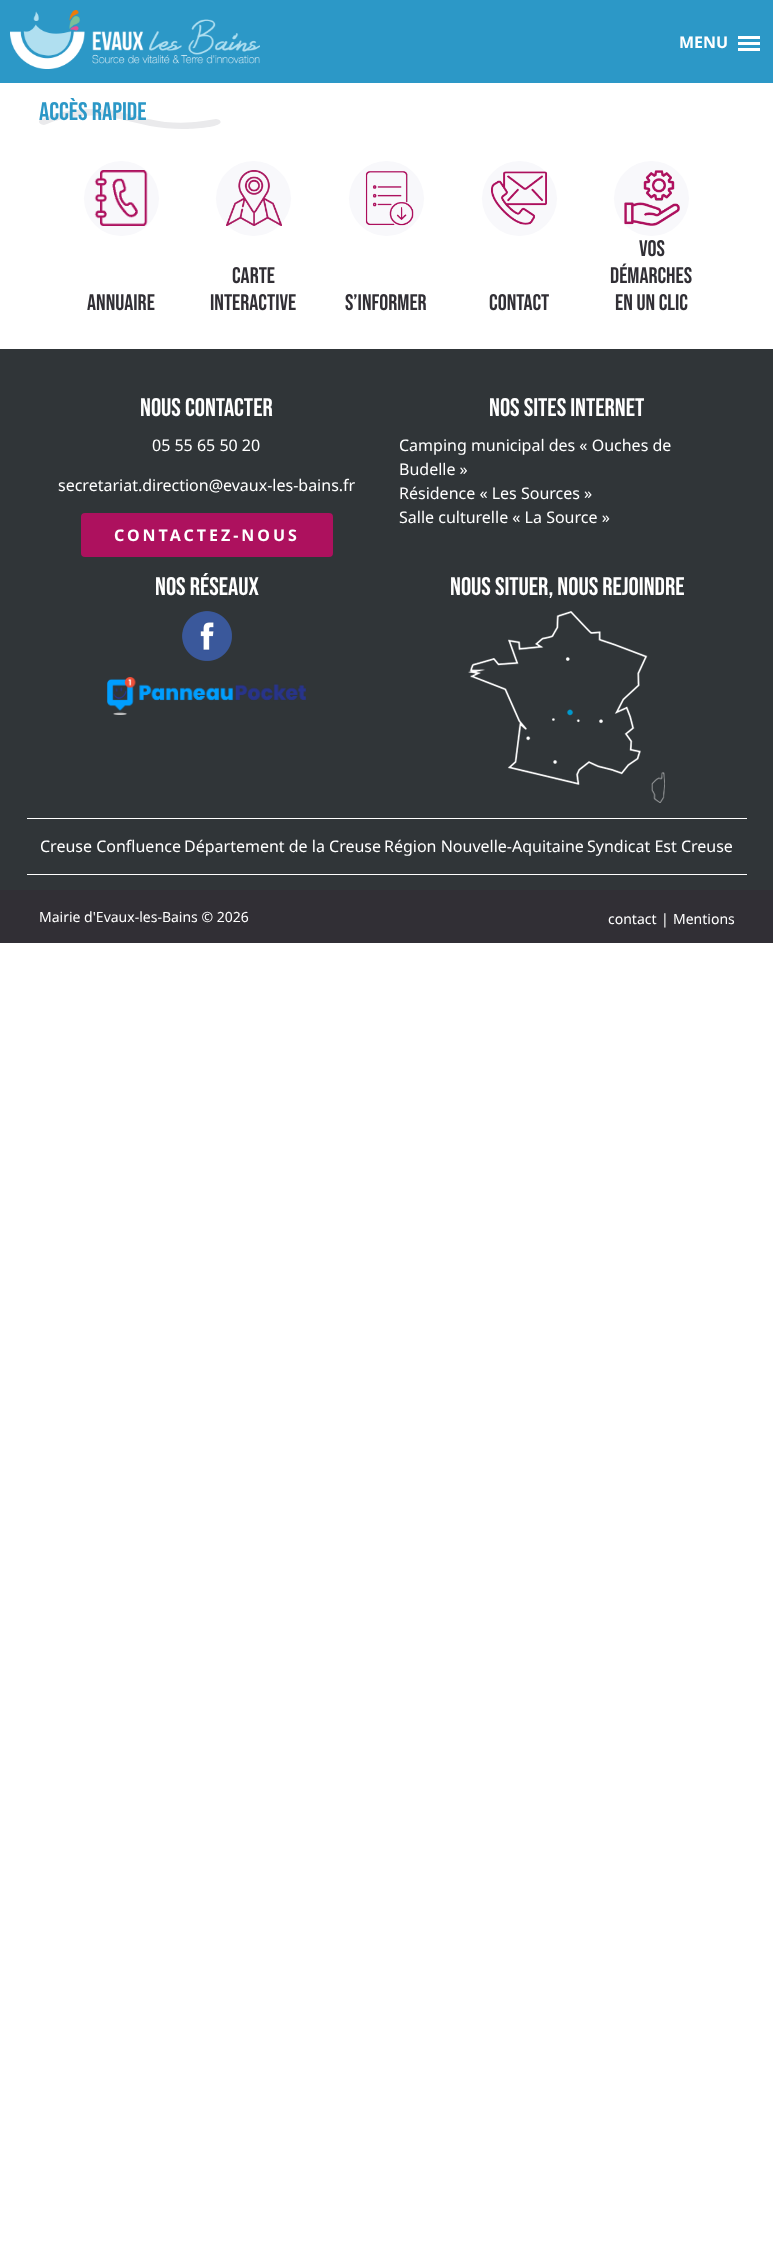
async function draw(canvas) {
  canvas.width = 773
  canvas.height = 2268
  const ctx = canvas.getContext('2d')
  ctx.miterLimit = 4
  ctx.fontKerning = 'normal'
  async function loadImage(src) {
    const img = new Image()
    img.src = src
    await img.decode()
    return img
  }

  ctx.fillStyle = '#fff'
  ctx.fillRect(0, 0, 773, 2268)
  ctx.fillStyle = '#2c98c7'
  ctx.fillRect(0, 0, 773, 83)
  ctx.drawImage(await loadImage('image0.png'), 10, 10, 250, 59)
  ctx.font = 'bold 16px Noto Sans'
  ctx.fillStyle = '#fff'
  ctx.fillText('MENU', 679, 48)
  ctx.fillRect(738, 36, 22, 3)
  ctx.fillRect(738, 42, 22, 3)
  ctx.fillRect(738, 48, 22, 3)
  ctx.fillStyle = '#eaeaec'
  ctx.beginPath()
  ctx.moveTo(183, 129)
  ctx.bezierCurveTo(172, 129, 161, 128, 150, 126)
  ctx.lineTo(115, 118)
  ctx.bezierCurveTo(102, 115, 88, 115, 74, 117)
  ctx.bezierCurveTo(65, 118, 56, 120, 47, 124)
  ctx.lineTo(44, 125)
  ctx.bezierCurveTo(41, 125, 37, 122, 40, 120)
  ctx.lineTo(50, 116)
  ctx.bezierCurveTo(64, 111, 79, 109, 95, 109)
  ctx.bezierCurveTo(119, 109, 141, 119, 165, 122)
  ctx.bezierCurveTo(178, 123, 190, 123, 203, 121)
  ctx.lineTo(216, 119)
  ctx.bezierCurveTo(219, 119, 223, 122, 219, 124)
  ctx.bezierCurveTo(214, 128, 188, 129, 183, 129)
  ctx.closePath()
  ctx.fill()
  ctx.font = '25.5px Bebas Neue'
  ctx.fillStyle = '#2c98c7'
  ctx.fillText('Accès rapide', 39, 120)
  ctx.fillStyle = '#f8f8fb'
  ctx.beginPath()
  ctx.arc(121.5, 198.5, 37.5, 0, 2 * Math.PI)
  ctx.fill()
  ctx.drawImage(await loadImage('image1.png'), 94, 170, 54, 56)
  ctx.font = '22.5px Bebas Neue'
  ctx.fillStyle = '#312f35'
  ctx.fillText('Annuaire', 87, 310)
  ctx.fillStyle = '#f8f8fb'
  ctx.beginPath()
  ctx.arc(253.5, 198.5, 37.5, 0, 2 * Math.PI)
  ctx.fill()
  ctx.drawImage(await loadImage('image2.png'), 226, 170, 56, 56)
  ctx.fillStyle = '#312f35'
  ctx.fillText('Carte', 232, 283)
  ctx.fillText('interactive', 210, 310)
  ctx.fillStyle = '#f8f8fb'
  ctx.beginPath()
  ctx.arc(386.5, 198.5, 37.5, 0, 2 * Math.PI)
  ctx.fill()
  ctx.drawImage(await loadImage('image3.png'), 365, 171, 49, 55)
  ctx.fillStyle = '#312f35'
  ctx.fillText('S’informer', 345, 310)
  ctx.fillStyle = '#f8f8fb'
  ctx.beginPath()
  ctx.arc(519.5, 198.5, 37.5, 0, 2 * Math.PI)
  ctx.fill()
  ctx.drawImage(await loadImage('image4.png'), 491, 171, 56, 54)
  ctx.fillStyle = '#312f35'
  ctx.fillText('Contact', 489, 310)
  ctx.fillStyle = '#f8f8fb'
  ctx.beginPath()
  ctx.arc(651.5, 198.5, 37.5, 0, 2 * Math.PI)
  ctx.fill()
  ctx.drawImage(await loadImage('image5.png'), 624, 170, 56, 56)
  ctx.fillStyle = '#312f35'
  ctx.fillText('Vos', 639, 256)
  ctx.fillText('démarches', 610, 283)
  ctx.fillText('en un clic', 615, 310)
  ctx.fillStyle = '#303538'
  ctx.fillRect(0, 349, 773, 541)
  ctx.font = '25.5px Bebas Neue'
  ctx.fillStyle = '#fff'
  ctx.fillText('Nous contacter', 140, 416)
  ctx.font = '16px Noto Sans'
  ctx.fillText('05 55 65 50 20', 152, 451)
  ctx.fillText('secretariat.direction@evaux-les-bains.fr', 58, 491)
  ctx.fillStyle = '#ad115e'
  ctx.beginPath()
  ctx.roundRect(81, 513, 252, 44, 4)
  ctx.fill()
  ctx.letterSpacing = '3px'
  ctx.font = 'bold 16px Noto Sans'
  ctx.fillStyle = '#fff'
  ctx.fillText('CONTACTEZ-NOUS', 114, 541)
  ctx.letterSpacing = '0px'
  ctx.font = '25.5px Bebas Neue'
  ctx.fillText('Nos sites internet', 489, 416)
  ctx.font = '16px Noto Sans'
  ctx.fillText('Camping municipal des « Ouches de', 399, 451)
  ctx.fillText('Budelle »', 399, 475)
  ctx.fillText('Résidence « Les Sources »', 399, 499)
  ctx.fillText('Salle culturelle « La Source »', 399, 523)
  ctx.font = '25.5px Bebas Neue'
  ctx.fillText('Nos réseaux', 155, 595)
  ctx.drawImage(await loadImage('image6.png'), 182, 611, 50, 50)
  ctx.drawImage(await loadImage('image7.png'), 107, 677, 199, 38)
  ctx.fillText('Nous situer, nous rejoindre', 450, 595)
  ctx.drawImage(await loadImage('image8.png'), 468, 611, 197, 192)
  ctx.fillRect(27, 818, 720, 1)
  ctx.fillRect(27, 874, 720, 1)
  ctx.font = '16px Noto Sans'
  ctx.fillText('Creuse Confluence', 40, 852)
  ctx.fillText('Département de la Creuse', 184, 852)
  ctx.fillText('Région Nouvelle-Aquitaine', 384, 852)
  ctx.fillText('Syndicat Est Creuse', 587, 852)
  ctx.fillStyle = '#312f35'
  ctx.fillRect(0, 890, 773, 53)
  ctx.font = '14px Noto Sans'
  ctx.fillStyle = '#fff'
  ctx.fillText('Mairie d\'Evaux-les-Bains © 2026', 39, 922)
  ctx.fillText('contact', 608, 924)
  ctx.fillText('|', 661, 924)
  ctx.fillText('Mentions', 673, 924)
}

draw(document.querySelector('canvas'))
